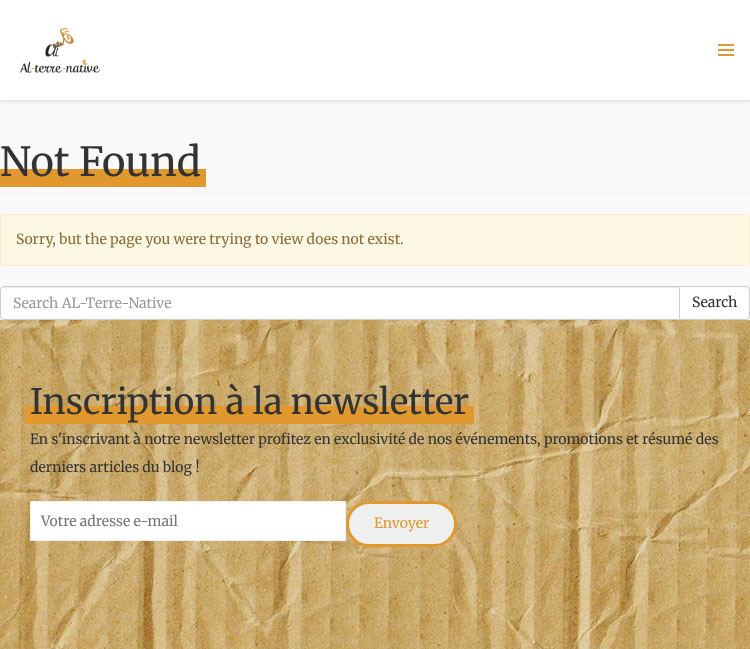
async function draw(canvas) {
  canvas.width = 750
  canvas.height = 649
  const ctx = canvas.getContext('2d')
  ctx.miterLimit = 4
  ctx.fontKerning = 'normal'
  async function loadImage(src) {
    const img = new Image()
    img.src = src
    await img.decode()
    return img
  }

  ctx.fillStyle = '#f9f9f9'
  ctx.fillRect(0, 0, 750, 649)
  ctx.fillStyle = '#00000033'
  ctx.filter = 'blur(2.5px)'
  ctx.beginPath()
  ctx.rect(0, 0, 750, 100)
  ctx.fill()
  ctx.filter = 'none'
  ctx.fillStyle = '#fff'
  ctx.fillRect(0, 0, 750, 100)
  ctx.drawImage(await loadImage('image0.png'), 20, 27, 80, 46)
  ctx.fillStyle = '#e1982e'
  ctx.fillRect(718, 49, 16, 2)
  ctx.fillRect(718, 44, 16, 2)
  ctx.fillRect(718, 54, 16, 2)
  ctx.fillStyle = '#eee'
  ctx.fillRect(0, 193, 750, 1)
  ctx.fillStyle = '#e1982e'
  ctx.fillRect(0, 169, 206, 18)
  ctx.font = '300 40px Merriweather'
  ctx.fillStyle = '#333'
  ctx.fillText('Not Found', 0, 176)
  ctx.fillStyle = '#fcf8e3'
  ctx.beginPath()
  ctx.roundRect(0.5, 214.5, 749, 51, 3.5)
  ctx.fill()
  ctx.strokeStyle = '#faebcc'
  ctx.stroke()
  ctx.font = '300 14px Merriweather'
  ctx.fillStyle = '#8a6d3b'
  ctx.fillText('Sorry, but the page you were trying to view does not exist.', 16, 244)
  ctx.fillStyle = '#00000033'
  ctx.filter = 'blur(5px)'
  ctx.beginPath()
  ctx.rect(0, 325, 750, 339)
  ctx.fill()
  ctx.filter = 'none'
  ctx.fillStyle = '#fff'
  ctx.beginPath()
  ctx.roundRect(0, 286, 680, 34, [4, 0, 0, 4])
  ctx.fill()
  ctx.fillStyle = '#ececec'
  ctx.beginPath()
  ctx.moveTo(4, 288)
  ctx.lineTo(679, 288)
  ctx.lineTo(679, 287)
  ctx.lineTo(4, 287)
  ctx.bezierCurveTo(2, 287, 1, 288, 1, 290)
  ctx.lineTo(1, 291)
  ctx.bezierCurveTo(1, 289, 2, 288, 4, 288)
  ctx.closePath()
  ctx.fill()
  ctx.beginPath()
  ctx.roundRect(0.5, 286.5, 679, 33, [3.5, 0, 0, 3.5])
  ctx.strokeStyle = '#ccc'
  ctx.stroke()
  ctx.fillStyle = '#999'
  ctx.fillText('Search AL-Terre-Native', 13, 308)
  ctx.fillStyle = '#fff'
  ctx.beginPath()
  ctx.roundRect(679.5, 286.5, 70, 33, [0, 3.5, 3.5, 0])
  ctx.fill()
  ctx.stroke()
  ctx.fillStyle = '#333'
  ctx.fillText('Search', 692, 307)
  ctx.drawImage(await loadImage('image1.png'), 0, 320, 750, 329)
  ctx.fillStyle = '#e1982e'
  ctx.fillRect(25, 406, 449, 18)
  ctx.font = '300 35px Merriweather'
  ctx.fillStyle = '#333'
  ctx.fillText('Inscription à la newsletter', 30, 414)
  ctx.font = '300 14px Merriweather'
  ctx.fillText('En s\'inscrivant à notre newsletter profitez en exclusivité de nos événements, promotions et résumé des', 30, 444)
  ctx.fillText('derniers articles du blog !', 30, 472)
  ctx.fillStyle = '#fff'
  ctx.beginPath()
  ctx.rect(30.5, 501.5, 315, 39)
  ctx.fill()
  ctx.strokeStyle = '#f2f2f2'
  ctx.stroke()
  ctx.fillStyle = '#757575'
  ctx.fillText('Votre adresse e-mail', 41, 526)
  ctx.fillStyle = '#efefef'
  ctx.beginPath()
  ctx.roundRect(347.5, 502.5, 108, 43, 21.5)
  ctx.fill()
  ctx.strokeStyle = '#e1982e'
  ctx.lineWidth = 3
  ctx.stroke()
  ctx.fillStyle = '#e1982e'
  ctx.fillText('Envoyer', 374, 528)
}

draw(document.querySelector('canvas'))
